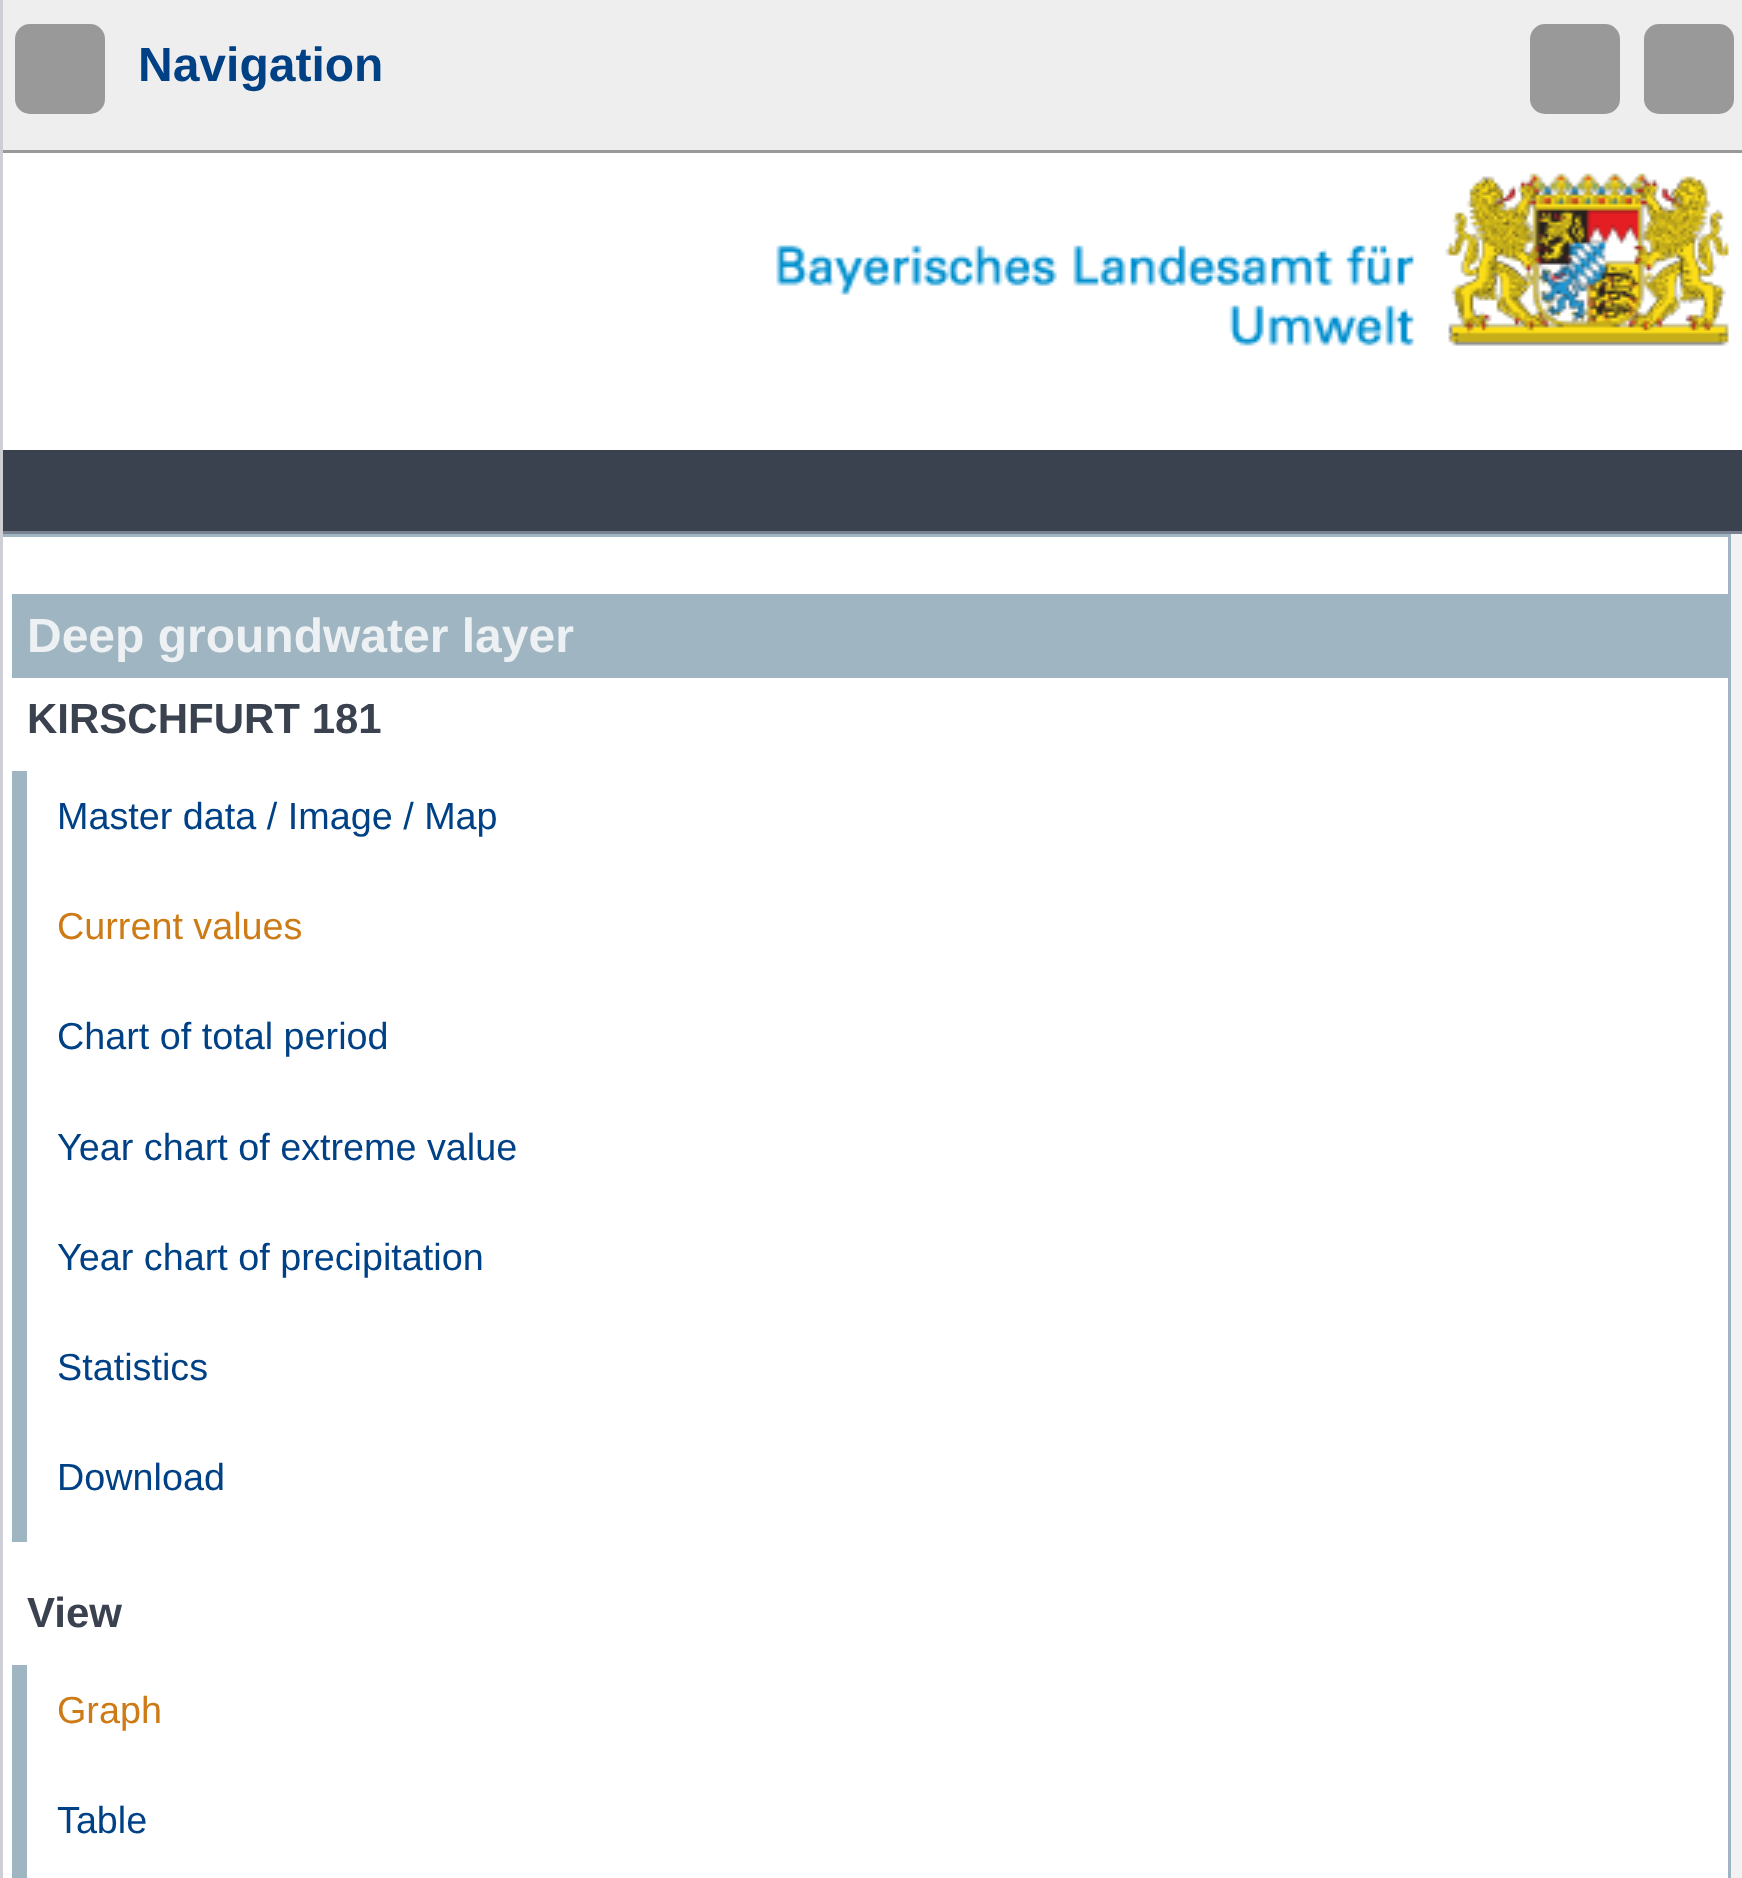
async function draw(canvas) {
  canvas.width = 1742
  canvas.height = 1878
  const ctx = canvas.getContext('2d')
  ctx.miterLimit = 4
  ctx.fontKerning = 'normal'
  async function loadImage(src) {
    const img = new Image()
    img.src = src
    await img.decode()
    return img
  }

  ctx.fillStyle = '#fff'
  ctx.fillRect(0, 0, 1742, 1878)
  ctx.fillStyle = '#cecfd4'
  ctx.fillRect(0, 0, 3, 1878)
  ctx.fillStyle = '#eee'
  ctx.fillRect(3, 0, 1739, 150)
  ctx.fillStyle = '#999'
  ctx.fillRect(3, 150, 1739, 3)
  ctx.beginPath()
  ctx.roundRect(15, 24, 90, 90, 15)
  ctx.fill()
  ctx.font = 'bold 48px Liberation Sans'
  ctx.fillStyle = '#004185'
  ctx.fillText('Navigation', 138, 81)
  ctx.fillStyle = '#999'
  ctx.beginPath()
  ctx.roundRect(1530, 24, 90, 90, 15)
  ctx.fill()
  ctx.beginPath()
  ctx.roundRect(1644, 24, 90, 90, 15)
  ctx.fill()
  ctx.drawImage(await loadImage('image0.png'), 776, 173, 953, 173)
  ctx.fillStyle = '#3b424f'
  ctx.fillRect(3, 450, 1739, 81)
  ctx.fillStyle = '#7a8291'
  ctx.fillRect(3, 531, 1739, 3)
  ctx.fillStyle = '#f2f2f2'
  ctx.fillRect(1731, 534, 11, 1344)
  ctx.fillStyle = '#9fb5c1'
  ctx.fillRect(3, 534, 1728, 3)
  ctx.fillRect(1728, 534, 3, 1344)
  ctx.fillRect(12, 594, 1716, 84)
  ctx.fillStyle = '#edf1f3'
  ctx.fillText('Deep groundwater layer', 27, 652)
  ctx.font = 'bold 42px Liberation Sans'
  ctx.fillStyle = '#3b424f'
  ctx.fillText('KIRSCHFURT 181', 27, 733)
  ctx.fillStyle = '#9fb5c1'
  ctx.fillRect(12, 771, 15, 771)
  ctx.font = '37.75px Liberation Sans'
  ctx.fillStyle = '#004185'
  ctx.fillText('Master data / Image / Map', 57, 829)
  ctx.fillStyle = '#cc7b17'
  ctx.fillText('Current values', 57, 939)
  ctx.fillStyle = '#004185'
  ctx.fillText('Chart of total period', 57, 1049)
  ctx.fillText('Year chart of extreme value', 57, 1160)
  ctx.fillText('Year chart of precipitation', 57, 1270)
  ctx.fillText('Statistics', 57, 1380)
  ctx.fillText('Download', 57, 1490)
  ctx.font = 'bold 42px Liberation Sans'
  ctx.fillStyle = '#3b424f'
  ctx.fillText('View', 27, 1627)
  ctx.fillStyle = '#9fb5c1'
  ctx.fillRect(12, 1665, 15, 213)
  ctx.font = '37.75px Liberation Sans'
  ctx.fillStyle = '#cc7b17'
  ctx.fillText('Graph', 57, 1723)
  ctx.fillStyle = '#004185'
  ctx.fillText('Table', 57, 1833)
}

draw(document.querySelector('canvas'))
